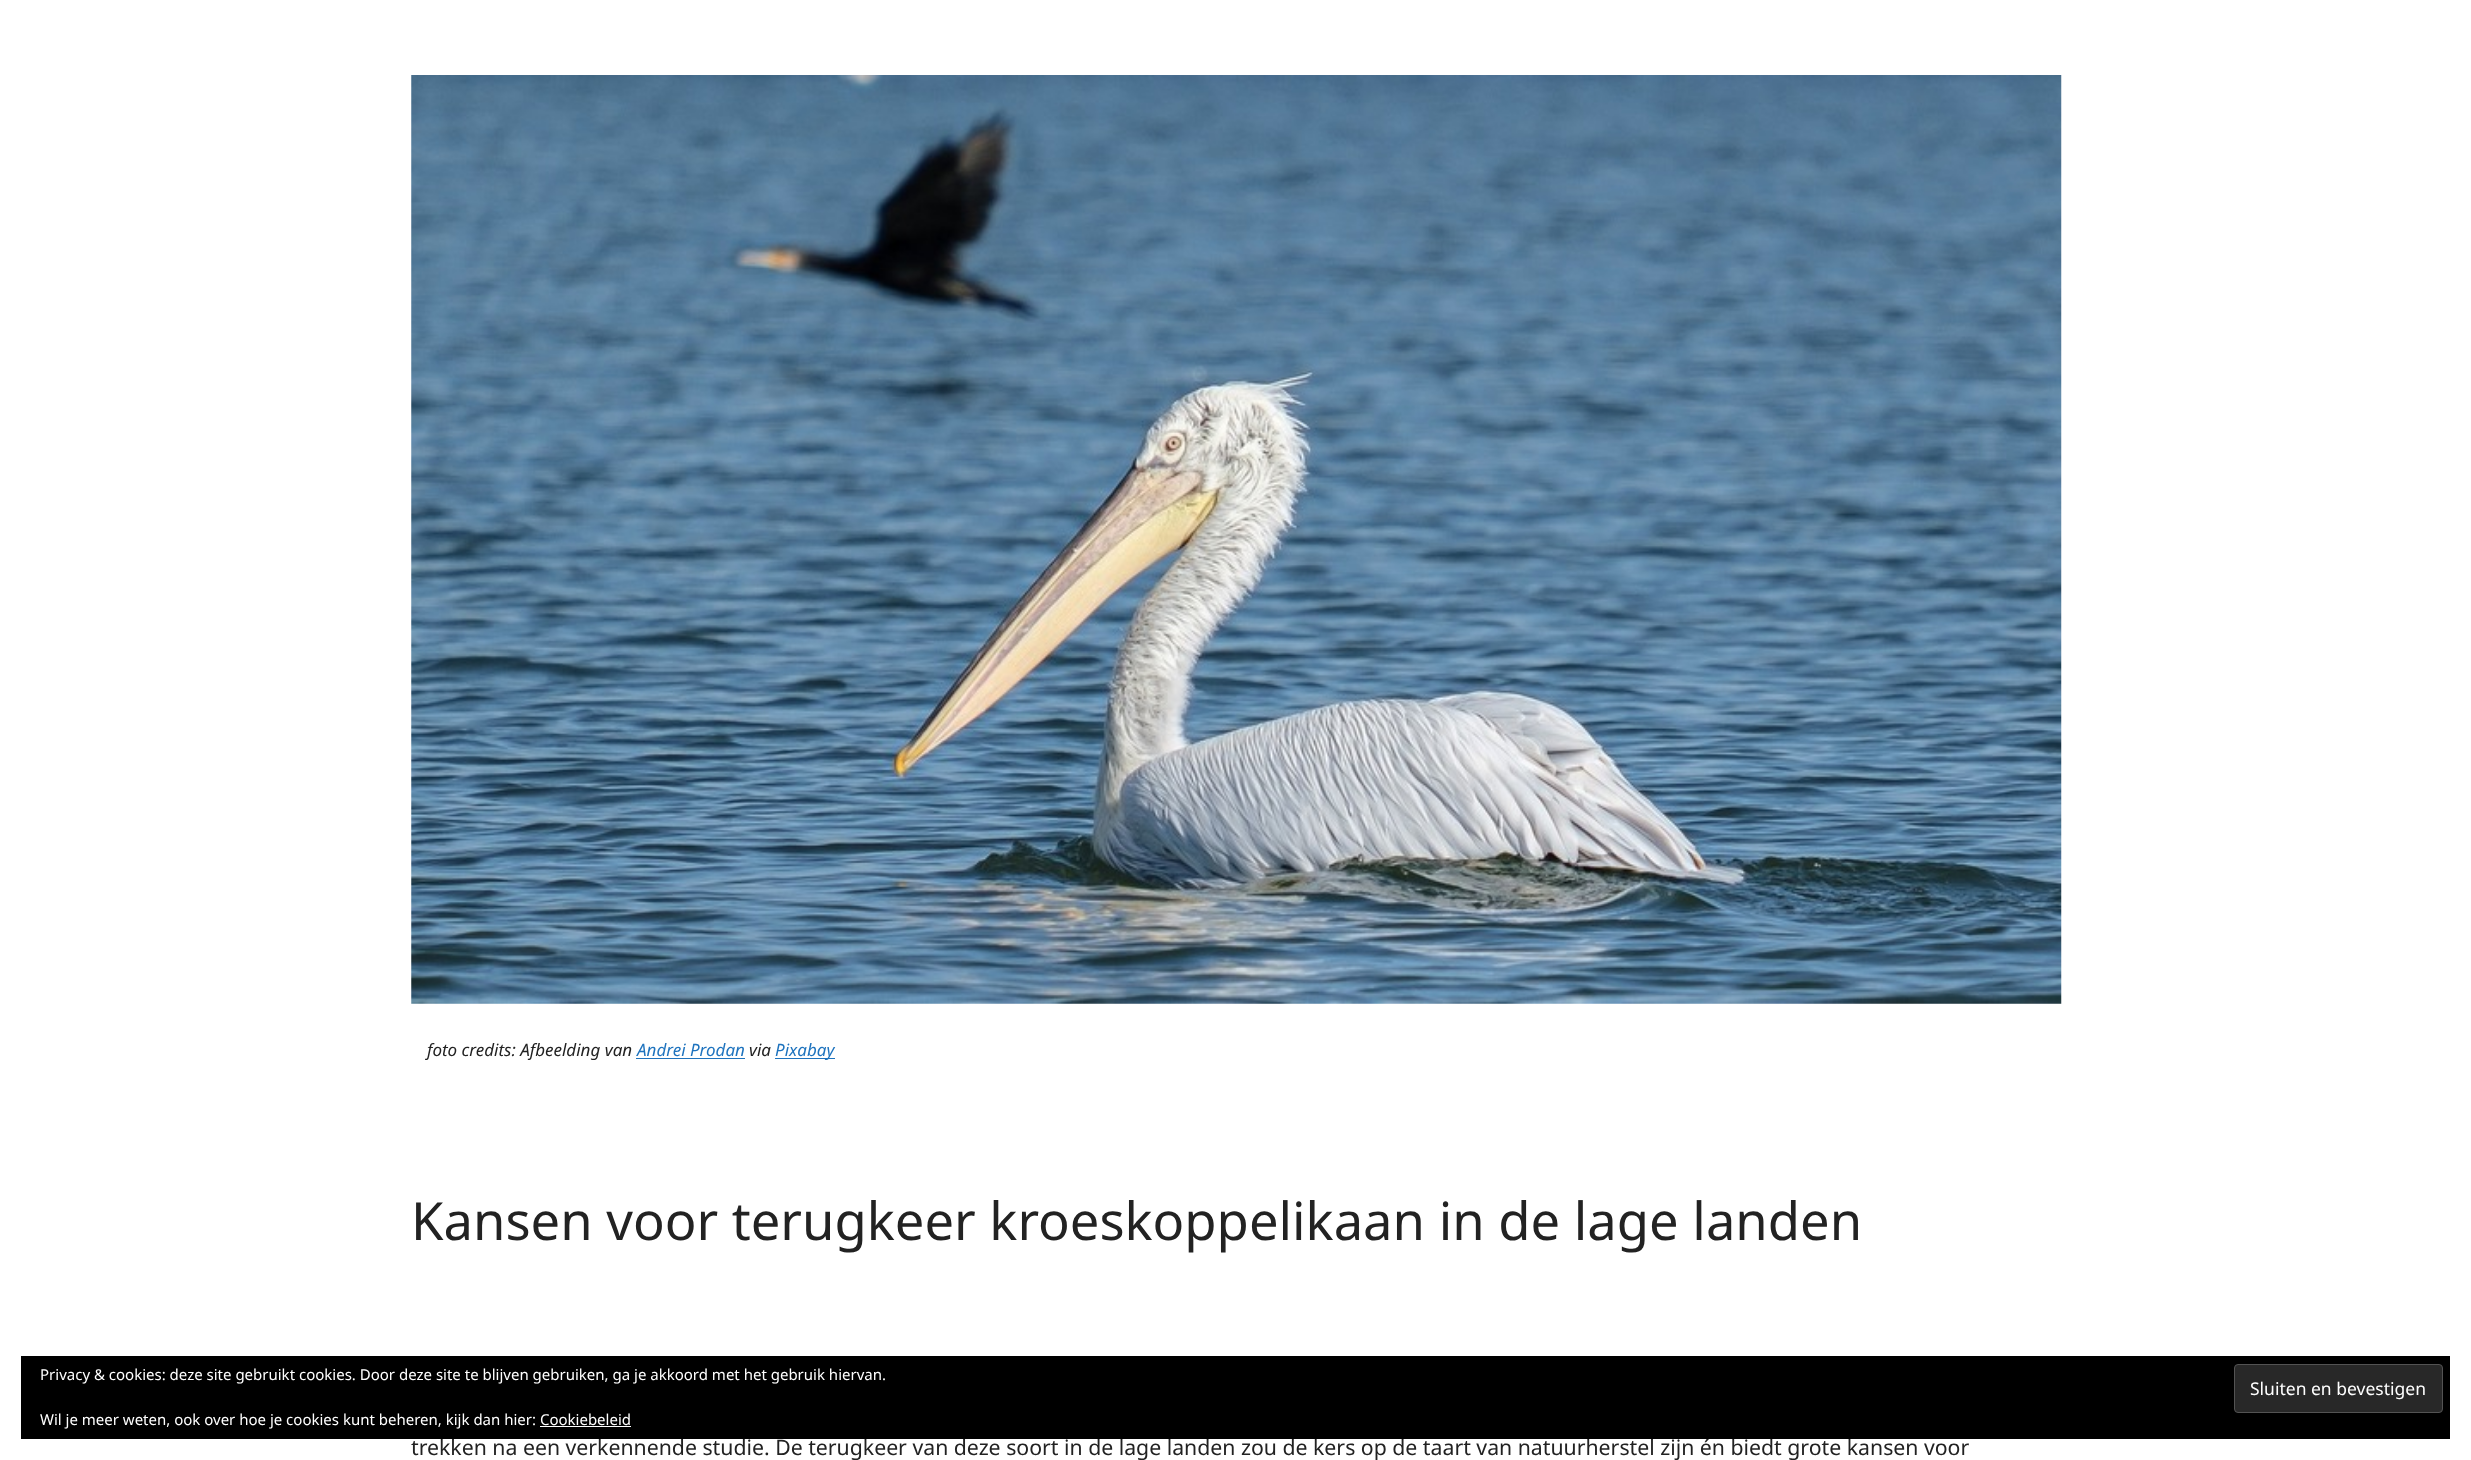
async function draw(canvas) {
  canvas.width = 2471
  canvas.height = 1460
  const ctx = canvas.getContext('2d')
  ctx.miterLimit = 4
  ctx.fontKerning = 'normal'
  async function loadImage(src) {
    const img = new Image()
    img.src = src
    await img.decode()
    return img
  }

  ctx.fillStyle = '#fff'
  ctx.fillRect(0, 0, 2471, 1460)
  ctx.drawImage(await loadImage('image0.png'), 411, 75, 1651, 929)
  ctx.font = 'italic 17px Noto Sans'
  ctx.fillStyle = '#222'
  ctx.fillText('foto credits: Afbeelding van', 427, 1056)
  ctx.fillStyle = '#1e73be'
  ctx.fillText('Andrei Prodan', 637, 1056)
  ctx.fillRect(636, 1058, 109, 1)
  ctx.fillStyle = '#222'
  ctx.fillText('via', 749, 1056)
  ctx.fillStyle = '#1e73be'
  ctx.fillRect(775, 1058, 60, 1)
  ctx.fillText('Pixabay', 775, 1056)
  ctx.font = '52.5px Noto Sans'
  ctx.fillStyle = '#222'
  ctx.fillText('Kansen voor terugkeer kroeskoppelikaan in de lage landen', 411, 1240)
  ctx.font = '21.25px Noto Sans'
  ctx.fillText('trekken na een verkennende studie. De terugkeer van deze soort in de lage landen zou de kers op de taart van natuurherstel zijn én biedt grote kansen voor', 411, 1455)
  ctx.fillStyle = '#000'
  ctx.fillRect(21, 1356, 2429, 83)
  ctx.font = '15px Noto Sans'
  ctx.fillStyle = '#fff'
  ctx.fillText('Privacy & cookies: deze site gebruikt cookies. Door deze site te blijven gebruiken, ga je akkoord met het gebruik hiervan.', 40, 1380)
  ctx.fillStyle = '#282828'
  ctx.beginPath()
  ctx.roundRect(2234.5, 1364.5, 208, 48, 3.5)
  ctx.fill()
  ctx.strokeStyle = '#535353'
  ctx.stroke()
  ctx.font = '17.5px Noto Sans'
  ctx.fillStyle = '#fff'
  ctx.fillText('Sluiten en bevestigen', 2250, 1395)
  ctx.font = '15px Noto Sans'
  ctx.fillText('Wil je meer weten, ook over hoe je cookies kunt beheren, kijk dan hier: Cookiebeleid', 40, 1425)
  ctx.fillRect(540, 1426, 91, 1)
}

draw(document.querySelector('canvas'))
